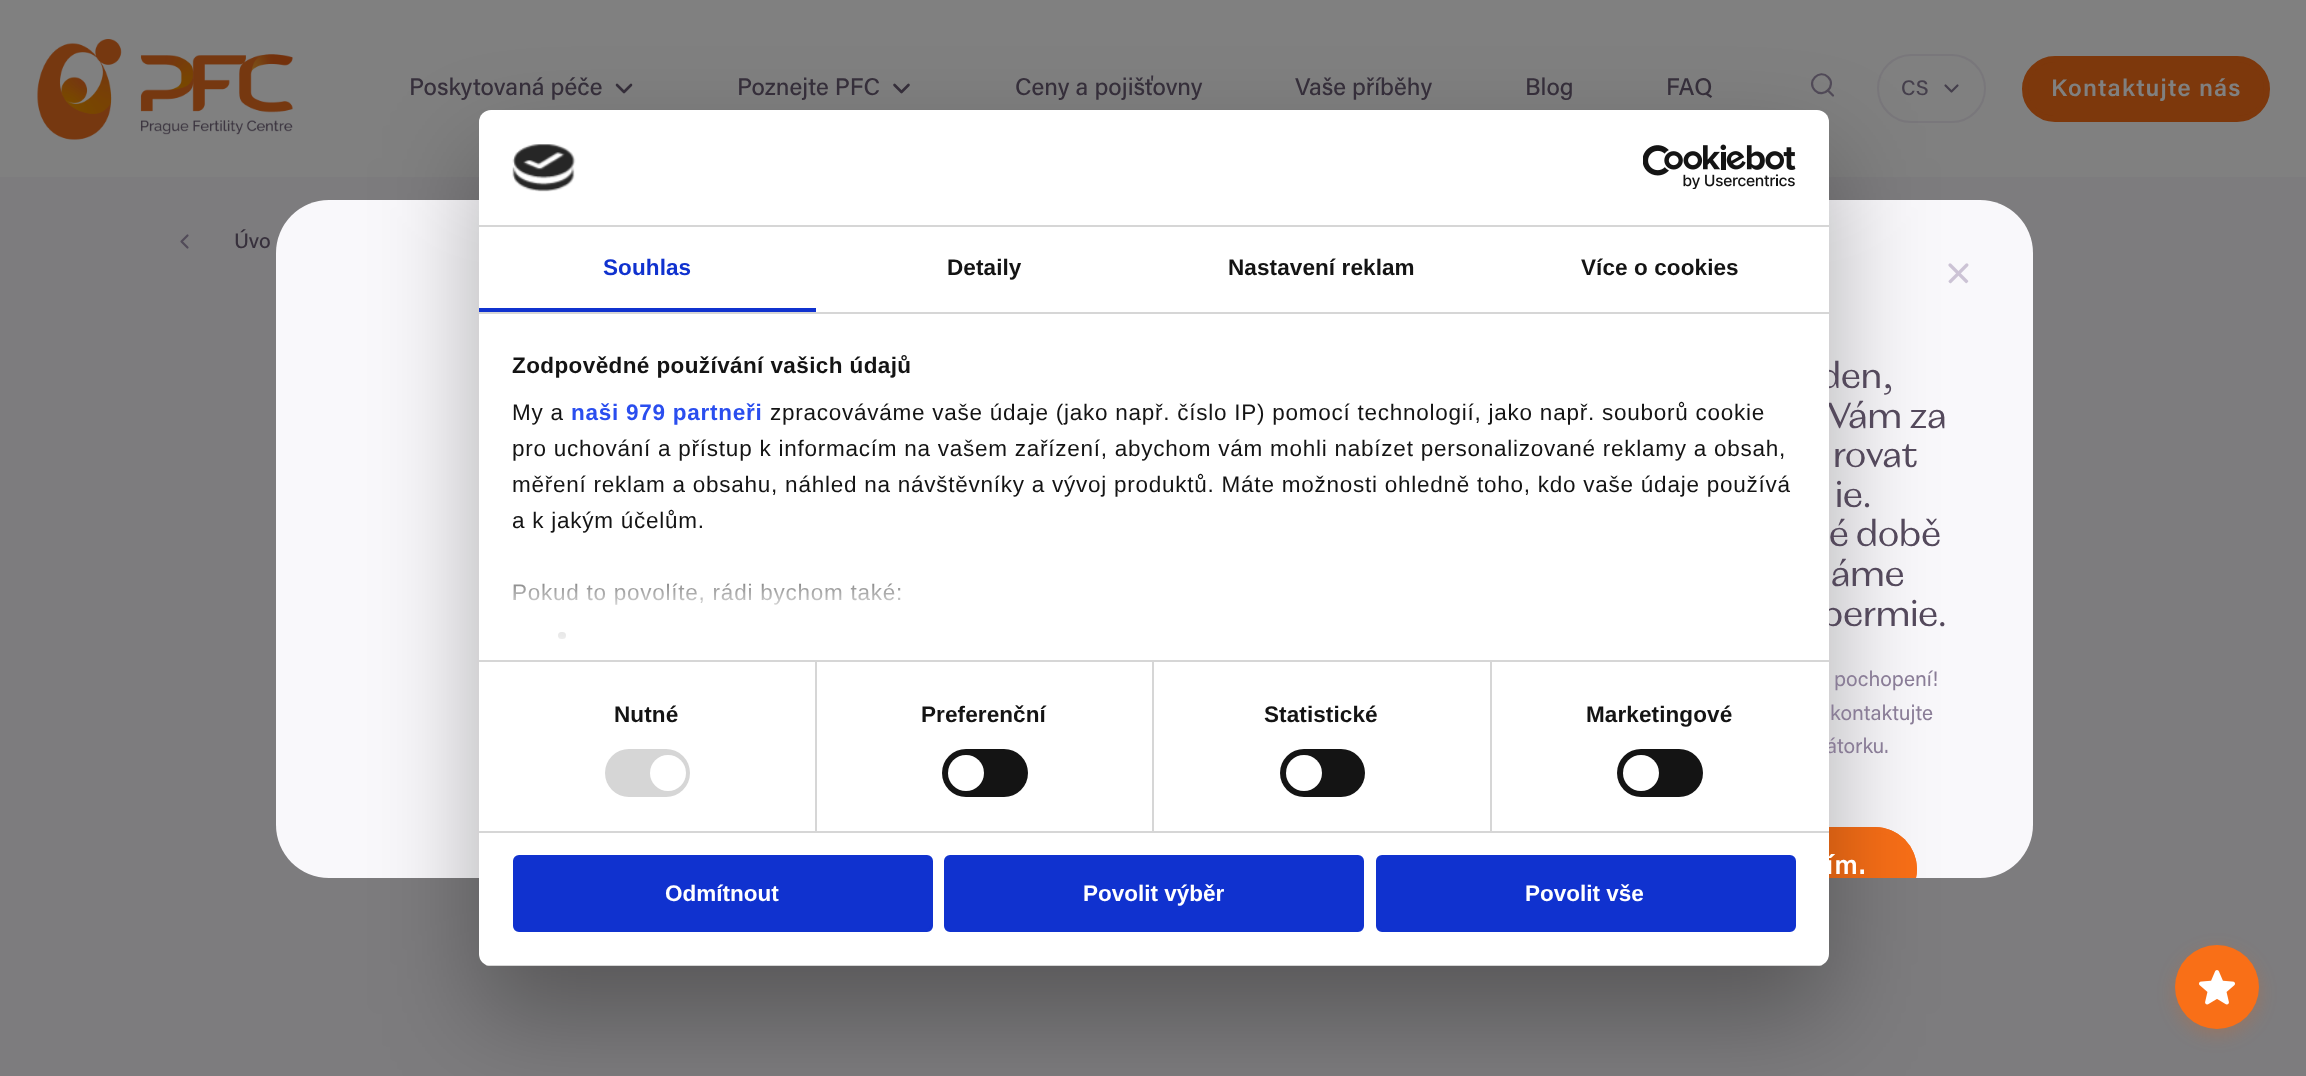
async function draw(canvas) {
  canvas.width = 2306
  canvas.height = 1076
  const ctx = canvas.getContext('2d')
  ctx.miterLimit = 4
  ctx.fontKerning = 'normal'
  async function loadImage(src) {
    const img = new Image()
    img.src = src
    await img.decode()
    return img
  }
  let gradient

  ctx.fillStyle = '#7d7c7e'
  ctx.fillRect(0, 0, 2306, 1076)
  ctx.fillStyle = '#808080'
  ctx.fillRect(0, 0, 2306, 177)
  ctx.drawImage(await loadImage('image0.png'), 37, 39, 256, 101)
  ctx.font = '500 24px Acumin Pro'
  ctx.fillStyle = '#37303c'
  ctx.fillText('Poskytovaná péče', 409, 95)
  ctx.beginPath()
  ctx.moveTo(617, 85)
  ctx.lineTo(624, 92)
  ctx.lineTo(631, 85)
  ctx.strokeStyle = '#37303c'
  ctx.lineWidth = 2.6
  ctx.lineCap = 'round'
  ctx.lineJoin = 'round'
  ctx.stroke()
  ctx.fillText('Poznejte PFC', 737, 95)
  ctx.beginPath()
  ctx.moveTo(894.5, 85)
  ctx.lineTo(901.5, 92)
  ctx.lineTo(908.5, 85)
  ctx.stroke()
  ctx.fillText('Ceny a pojišťovny', 1015, 95)
  ctx.fillText('Vaše příběhy', 1295, 95)
  ctx.fillText('Blog', 1525, 95)
  ctx.fillText('FAQ', 1666, 95)
  ctx.beginPath()
  ctx.moveTo(1828, 77)
  ctx.bezierCurveTo(1837, 85.5, 1823.5, 99, 1815, 90.5)
  ctx.bezierCurveTo(1806, 81.5, 1819.5, 68.5, 1828, 77)
  ctx.moveTo(1833, 95.5)
  ctx.lineTo(1828, 90.5)
  ctx.strokeStyle = '#524b59'
  ctx.lineWidth = 2.2
  ctx.stroke()
  ctx.beginPath()
  ctx.roundRect(1878, 55, 107, 67, 33.5)
  ctx.strokeStyle = '#79777b'
  ctx.lineWidth = 2
  ctx.lineJoin = 'miter'
  ctx.stroke()
  ctx.font = '500 21px Acumin Pro'
  ctx.fillStyle = '#453f4c'
  ctx.fillText('CS', 1901, 95)
  ctx.beginPath()
  ctx.moveTo(1945.5, 85.5)
  ctx.lineTo(1951.5, 91.5)
  ctx.lineTo(1957.5, 85.5)
  ctx.strokeStyle = '#453f4c'
  ctx.lineWidth = 2.2
  ctx.lineJoin = 'round'
  ctx.stroke()
  ctx.fillStyle = '#7d380c'
  ctx.beginPath()
  ctx.roundRect(2025, 59, 242, 60, 30)
  ctx.fill()
  ctx.strokeStyle = '#7d380c'
  ctx.lineWidth = 6
  ctx.lineJoin = 'miter'
  ctx.stroke()
  ctx.letterSpacing = '1.25px'
  ctx.font = '600 24px Acumin Pro'
  ctx.fillStyle = '#808080'
  ctx.fillText('Kontaktujte nás', 2051, 96)
  ctx.beginPath()
  ctx.moveTo(187.5, 235.5)
  ctx.lineTo(181.5, 241.5)
  ctx.lineTo(187.5, 247.5)
  ctx.strokeStyle = '#524b59'
  ctx.lineWidth = 2.2
  ctx.lineJoin = 'round'
  ctx.stroke()
  ctx.letterSpacing = '0px'
  ctx.font = '500 21px Acumin Pro'
  ctx.fillStyle = '#37303c'
  ctx.fillText('Úvo', 234, 248)
  ctx.fillStyle = '#f9f8fb'
  ctx.beginPath()
  ctx.roundRect(276, 200, 1757, 678, 53)
  ctx.fill()
  ctx.drawImage(await loadImage('image3.png'), 1948, 263, 21, 21)
  ctx.save()
  ctx.beginPath()
  ctx.roundRect(276, 200, 1757, 678, 53)
  ctx.clip()
  ctx.fillStyle = '#f96f17'
  ctx.beginPath()
  ctx.roundRect(1685, 827, 232, 84, 42)
  ctx.fill()
  ctx.restore()
  ctx.fillStyle = '#f96f17'
  ctx.beginPath()
  ctx.moveTo(1727, 827)
  ctx.bezierCurveTo(1701, 827, 1680, 852, 1686, 878)
  ctx.lineTo(1692, 878)
  ctx.bezierCurveTo(1691, 875, 1691, 872, 1691, 869)
  ctx.bezierCurveTo(1691, 849, 1707, 833, 1727, 833)
  ctx.lineTo(1875, 833)
  ctx.bezierCurveTo(1895, 833, 1911, 849, 1911, 869)
  ctx.bezierCurveTo(1911, 872, 1911, 875, 1910, 878)
  ctx.lineTo(1916, 878)
  ctx.bezierCurveTo(1922, 852, 1901, 827, 1875, 827)
  ctx.closePath()
  ctx.fill()
  ctx.fillStyle = '#0000004d'
  ctx.filter = 'blur(51px)'
  ctx.beginPath()
  ctx.roundRect(479, 158, 1350, 856, 12)
  ctx.fill()
  ctx.filter = 'none'
  ctx.font = '36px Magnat'
  ctx.fillStyle = '#54495c'
  ctx.fillText('den,', 1819, 388)
  ctx.fillText('Vám za', 1827, 428)
  ctx.fillText('permie.', 1821, 626)
  ctx.font = '21px Acumin Pro'
  ctx.fillStyle = '#8a7d97'
  ctx.fillText('átorku.', 1826, 753)
  ctx.fillStyle = '#fff'
  ctx.beginPath()
  ctx.roundRect(479, 110, 1350, 856, 12)
  ctx.fill()
  ctx.fillStyle = '#d6d6d6'
  ctx.fillRect(479, 225, 1350, 2)
  ctx.drawImage(await loadImage('image1.png'), 512, 144, 64, 48)
  ctx.drawImage(await loadImage('image2.png'), 1643, 144, 153, 45)
  ctx.fillRect(479, 312, 1350, 2)
  ctx.fillStyle = '#1032cf'
  ctx.fillRect(479, 308, 337, 4)
  ctx.letterSpacing = '0.1px'
  ctx.font = 'bold 22.5px Liberation Sans'
  ctx.fillText('Souhlas', 603, 275)
  ctx.fillStyle = '#141414'
  ctx.fillText('Detaily', 947, 275)
  ctx.fillText('Nastavení reklam', 1228, 275)
  ctx.fillText('Více o cookies', 1581, 275)
  ctx.fillStyle = '#d6d6d6'
  ctx.fillRect(479, 660, 1350, 2)
  ctx.letterSpacing = '0.4px'
  ctx.fillStyle = '#141414'
  ctx.fillText('Zodpovědné používání vašich údajů', 512, 373)
  ctx.letterSpacing = '0.75px'
  ctx.font = '22.5px Liberation Sans'
  ctx.fillText('My a', 512, 420)
  ctx.font = 'bold 22.5px Liberation Sans'
  ctx.fillStyle = '#2a4eef'
  ctx.fillText('naši 979 partneři', 571, 420)
  ctx.font = '22.5px Liberation Sans'
  ctx.fillStyle = '#141414'
  ctx.fillText('zpracováváme vaše údaje (jako např. číslo IP) pomocí technologií, jako např. souborů cookie', 770, 420)
  ctx.fillText('pro uchování a přístup k informacím na vašem zařízení, abychom vám mohli nabízet personalizované reklamy a obsah,', 512, 456)
  ctx.fillText('měření reklam a obsahu, náhled na návštěvníky a vývoj produktů. Máte možnosti ohledně toho, kdo vaše údaje používá', 512, 492)
  ctx.fillText('a k jakým účelům.', 512, 528)
  ctx.fillText('Pokud to povolíte, rádi bychom také:', 512, 600)
  ctx.beginPath()
  ctx.roundRect(558, 632, 8, 7, 3.5)
  ctx.fill()
  gradient = ctx.createLinearGradient(1139, 660, 1139, 548)
  gradient.addColorStop(0, '#fff')
  gradient.addColorStop(0.5, '#ffffffcc')
  gradient.addColorStop(1, '#ffffff00')
  ctx.fillStyle = gradient
  ctx.fillRect(514, 583, 387, 56)
  ctx.fillStyle = '#d6d6d6'
  ctx.fillRect(479, 831, 1350, 2)
  ctx.fillRect(815, 662, 2, 169)
  ctx.letterSpacing = '0.1px'
  ctx.font = 'bold 22.5px Liberation Sans'
  ctx.fillStyle = '#141414'
  ctx.fillText('Nutné', 614, 722)
  ctx.fillStyle = '#d6d6d6'
  ctx.beginPath()
  ctx.roundRect(605, 749, 85, 48, 24)
  ctx.fill()
  ctx.fillStyle = '#fff'
  ctx.beginPath()
  ctx.arc(668, 773, 18, 0, 2 * Math.PI)
  ctx.fill()
  ctx.fillStyle = '#d6d6d6'
  ctx.fillRect(1152, 662, 2, 169)
  ctx.fillStyle = '#141414'
  ctx.fillText('Preferenční', 921, 722)
  ctx.beginPath()
  ctx.roundRect(942, 749, 86, 48, 24)
  ctx.fill()
  ctx.fillStyle = '#fff'
  ctx.beginPath()
  ctx.arc(966, 773, 18, 0, 2 * Math.PI)
  ctx.fill()
  ctx.fillStyle = '#d6d6d6'
  ctx.fillRect(1490, 662, 2, 169)
  ctx.fillStyle = '#141414'
  ctx.fillText('Statistické', 1264, 722)
  ctx.beginPath()
  ctx.roundRect(1280, 749, 85, 48, 24)
  ctx.fill()
  ctx.fillStyle = '#fff'
  ctx.beginPath()
  ctx.arc(1304, 773, 18, 0, 2 * Math.PI)
  ctx.fill()
  ctx.fillStyle = '#141414'
  ctx.fillText('Marketingové', 1586, 722)
  ctx.beginPath()
  ctx.roundRect(1617, 749, 86, 48, 24)
  ctx.fill()
  ctx.fillStyle = '#fff'
  ctx.beginPath()
  ctx.arc(1641, 773, 18, 0, 2 * Math.PI)
  ctx.fill()
  ctx.save()
  ctx.beginPath()
  ctx.roundRect(479, 110, 1350, 856, 12)
  ctx.clip()
  ctx.fillStyle = '#d6d6d6'
  ctx.fillRect(479, 965, 1350, 1)
  ctx.restore()
  ctx.fillStyle = '#1032cf'
  ctx.beginPath()
  ctx.roundRect(514.5, 856.5, 417, 74, 4.5)
  ctx.fill()
  ctx.strokeStyle = '#1032cf'
  ctx.lineWidth = 3
  ctx.lineJoin = 'miter'
  ctx.stroke()
  ctx.letterSpacing = '0px'
  ctx.fillStyle = '#fff'
  ctx.fillText('Odmítnout', 665, 901)
  ctx.fillStyle = '#1032cf'
  ctx.beginPath()
  ctx.roundRect(945.5, 856.5, 417, 74, 4.5)
  ctx.fill()
  ctx.stroke()
  ctx.fillStyle = '#fff'
  ctx.fillText('Povolit výběr', 1083, 901)
  ctx.fillStyle = '#1032cf'
  ctx.beginPath()
  ctx.roundRect(1377.5, 856.5, 417, 74, 4.5)
  ctx.fill()
  ctx.stroke()
  ctx.fillStyle = '#fff'
  ctx.fillText('Povolit vše', 1525, 901)
  ctx.font = '36px Magnat'
  ctx.fillStyle = '#54495c'
  ctx.fillText('rovat', 1833, 467)
  ctx.fillText('ie.', 1835, 507)
  ctx.fillText('é době', 1829, 546)
  ctx.fillText('áme', 1831, 586)
  ctx.font = '21px Acumin Pro'
  ctx.fillStyle = '#8a7d97'
  ctx.fillText('pochopení!', 1834, 686)
  ctx.fillText('kontaktujte', 1830, 720)
  ctx.letterSpacing = '1.5px'
  ctx.font = '600 27px Acumin Pro'
  ctx.fillStyle = '#fff'
  ctx.fillText('ím.', 1826, 874)
  ctx.fillStyle = '#ff5f0033'
  ctx.filter = 'blur(9px)'
  ctx.beginPath()
  ctx.roundRect(2175, 951, 84, 84, 42)
  ctx.fill()
  ctx.filter = 'none'
  ctx.fillStyle = '#f96f17'
  ctx.beginPath()
  ctx.arc(2217, 987, 42, 0, 2 * Math.PI)
  ctx.fill()
  ctx.drawImage(await loadImage('image4.png'), 2199, 970, 36, 35)
}

draw(document.querySelector('canvas'))
